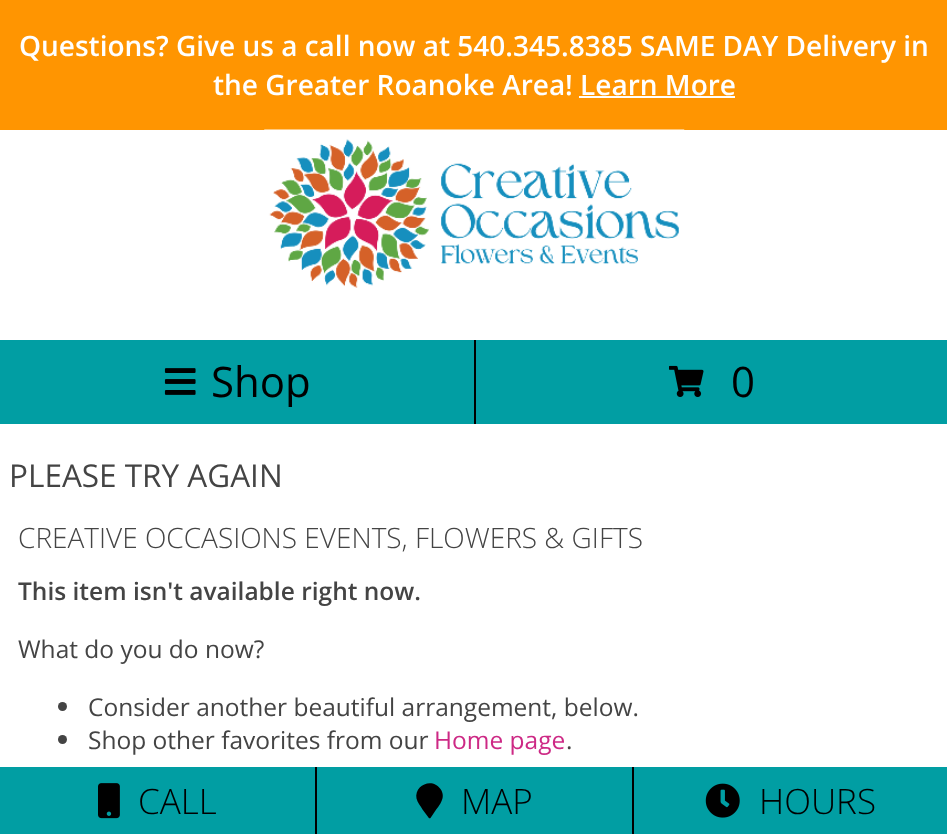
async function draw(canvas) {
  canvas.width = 947
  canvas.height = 834
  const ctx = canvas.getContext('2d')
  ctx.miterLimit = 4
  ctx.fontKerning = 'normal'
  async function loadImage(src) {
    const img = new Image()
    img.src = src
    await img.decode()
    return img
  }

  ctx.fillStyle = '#fff'
  ctx.fillRect(0, 0, 947, 834)
  ctx.fillStyle = '#ff9501'
  ctx.fillRect(0, 0, 947, 130)
  ctx.font = '600 28px Open Sans'
  ctx.fillStyle = '#fff'
  ctx.fillText('Questions? Give us a call now at 540.345.8385 SAME DAY Delivery in', 19, 56)
  ctx.fillText('the Greater Roanoke Area! Learn More', 213, 95)
  ctx.fillRect(579, 96, 156, 2)
  ctx.drawImage(await loadImage('image0.png'), 264, 129, 421, 159)
  ctx.fillStyle = '#000'
  ctx.fillRect(474, 340, 2, 84)
  ctx.fillStyle = '#019ea3'
  ctx.fillRect(0, 340, 474, 84)
  ctx.drawImage(await loadImage('image1.png'), 164, 368, 32, 27)
  ctx.font = '42px Open Sans'
  ctx.fillStyle = '#000'
  ctx.fillText('Shop', 211, 397)
  ctx.fillStyle = '#019ea3'
  ctx.fillRect(476, 340, 471, 84)
  ctx.drawImage(await loadImage('image2.png'), 669, 365, 35, 32)
  ctx.fillStyle = '#000'
  ctx.fillText('0', 731, 397)
  ctx.font = '31.5px Open Sans'
  ctx.fillStyle = '#444'
  ctx.fillText('PLEASE TRY AGAIN', 9, 487)
  ctx.font = '300 28px Open Sans'
  ctx.fillText('CREATIVE OCCASIONS EVENTS, FLOWERS & GIFTS', 18, 548)
  ctx.font = '600 24.5px Open Sans'
  ctx.fillText('This item isn\'t available right now.', 18, 600)
  ctx.font = '24.5px Open Sans'
  ctx.fillText('What do you do now?', 18, 658)
  ctx.beginPath()
  ctx.arc(62.5, 706.5, 4.5, 0, 2 * Math.PI)
  ctx.fill()
  ctx.fillText('Consider another beautiful arrangement, below.', 88, 716)
  ctx.beginPath()
  ctx.arc(62.5, 739.5, 4.5, 0, 2 * Math.PI)
  ctx.fill()
  ctx.fillText('Shop other favorites from our', 88, 749)
  ctx.fillStyle = '#cd2985'
  ctx.fillText('Home page', 434, 749)
  ctx.fillStyle = '#444'
  ctx.fillText('.', 566, 749)
  ctx.fillStyle = '#019ea3'
  ctx.fillRect(0, 767, 315, 67)
  ctx.drawImage(await loadImage('image3.png'), 98, 783, 22, 36)
  ctx.font = '300 35px Open Sans'
  ctx.fillStyle = '#000'
  ctx.fillText('CALL', 138, 814)
  ctx.fillStyle = '#019ea3'
  ctx.fillRect(317, 767, 315, 67)
  ctx.fillStyle = '#000'
  ctx.fillRect(315, 767, 2, 67)
  ctx.beginPath()
  ctx.moveTo(428.5, 817.5)
  ctx.lineTo(422.5, 809.5)
  ctx.bezierCurveTo(420.5, 806, 417.5, 802.5, 416.5, 798.5)
  ctx.bezierCurveTo(414, 785, 432.5, 777, 440.5, 789)
  ctx.bezierCurveTo(446.5, 797.5, 439.5, 805, 434.5, 812)
  ctx.lineTo(430.5, 818)
  ctx.bezierCurveTo(429.5, 818.5, 428.5, 818, 428.5, 817.5)
  ctx.closePath()
  ctx.fill()
  ctx.fillText('MAP', 461, 814)
  ctx.fillStyle = '#019ea3'
  ctx.fillRect(634, 767, 313, 67)
  ctx.fillStyle = '#000'
  ctx.fillRect(632, 767, 2, 67)
  ctx.drawImage(await loadImage('image4.png'), 705, 783, 35, 35)
  ctx.fillText('HOURS', 759, 814)
}

draw(document.querySelector('canvas'))
